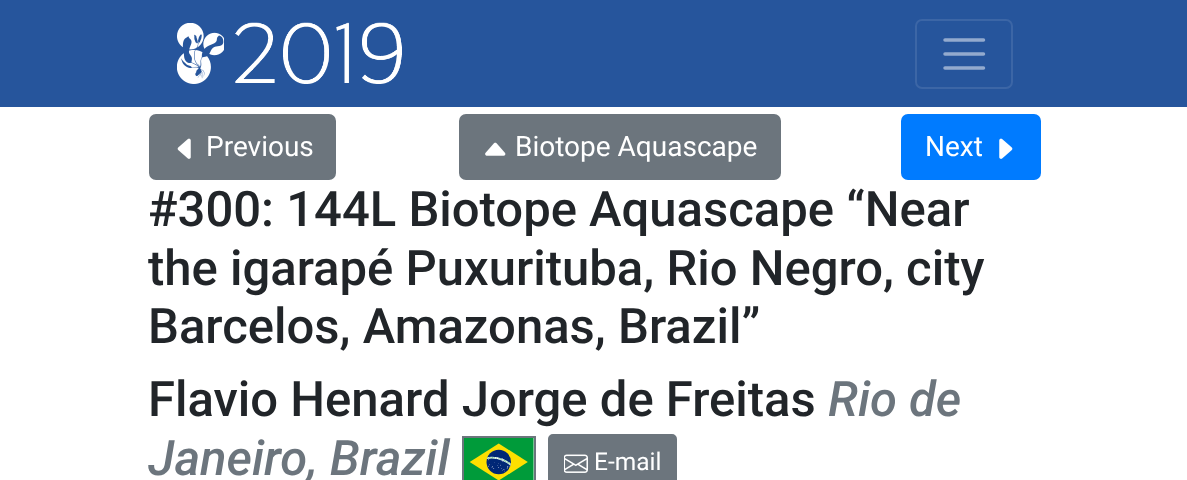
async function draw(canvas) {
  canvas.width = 1187
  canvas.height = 480
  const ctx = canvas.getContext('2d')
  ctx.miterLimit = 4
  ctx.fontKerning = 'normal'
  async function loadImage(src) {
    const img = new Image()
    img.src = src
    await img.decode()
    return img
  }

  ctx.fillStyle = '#fff'
  ctx.fillRect(0, 0, 1187, 480)
  ctx.fillStyle = '#26559c'
  ctx.fillRect(0, 0, 1187, 107)
  ctx.drawImage(await loadImage('image0.png'), 177, 23, 47, 61)
  ctx.drawImage(await loadImage('image1.png'), 235, 22, 167, 62)
  ctx.beginPath()
  ctx.roundRect(916, 20, 96, 68, 6)
  ctx.strokeStyle = '#3c66a6'
  ctx.lineWidth = 2
  ctx.stroke()
  ctx.beginPath()
  ctx.moveTo(945, 40)
  ctx.lineTo(983.5, 40)
  ctx.moveTo(945, 54)
  ctx.lineTo(983.5, 54)
  ctx.moveTo(945, 68)
  ctx.lineTo(983.5, 68)
  ctx.strokeStyle = '#93aace'
  ctx.lineWidth = 3.5
  ctx.lineCap = 'round'
  ctx.stroke()
  ctx.fillStyle = '#6c757d'
  ctx.beginPath()
  ctx.roundRect(150, 115, 185, 64, 6)
  ctx.fill()
  ctx.strokeStyle = '#6c757d'
  ctx.lineWidth = 2
  ctx.stroke()
  ctx.drawImage(await loadImage('image2.png'), 177, 138, 14, 21)
  ctx.font = '28px Roboto'
  ctx.fillStyle = '#fff'
  ctx.fillText('Previous', 206, 156)
  ctx.fillStyle = '#6c757d'
  ctx.beginPath()
  ctx.roundRect(460, 115, 320, 64, 6)
  ctx.fill()
  ctx.stroke()
  ctx.drawImage(await loadImage('image3.png'), 485, 142, 21, 14)
  ctx.fillStyle = '#fff'
  ctx.fillText('Biotope Aquascape', 515, 156)
  ctx.fillStyle = '#007bff'
  ctx.beginPath()
  ctx.roundRect(902, 115, 138, 64, 6)
  ctx.fill()
  ctx.strokeStyle = '#007bff'
  ctx.stroke()
  ctx.fillStyle = '#fff'
  ctx.fillText('Next', 925, 156)
  ctx.drawImage(await loadImage('image4.png'), 999, 138, 14, 21)
  ctx.font = '500 49px Roboto'
  ctx.fillStyle = '#212529'
  ctx.fillText('#300: 144L Biotope Aquascape “Near', 148, 226)
  ctx.fillText('the igarapé Puxurituba, Rio Negro, city', 148, 285)
  ctx.fillText('Barcelos, Amazonas, Brazil”', 148, 343)
  ctx.fillText('Flavio Henard Jorge de Freitas', 148, 416)
  ctx.font = 'italic 500 49px Roboto'
  ctx.fillStyle = '#6c757d'
  ctx.fillText('Rio de', 828, 416)
  ctx.fillText('Janeiro, Brazil', 148, 475)
  ctx.strokeStyle = '#6c757d'
  ctx.strokeRect(463, 437, 72, 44)
  ctx.drawImage(await loadImage('image5.png'), 464, 438, 70, 42)
  ctx.beginPath()
  ctx.roundRect(549, 435, 127, 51, 4)
  ctx.fill()
  ctx.stroke()
  ctx.drawImage(await loadImage('image6.png'), 564, 454, 24, 19)
  ctx.font = '24.5px Roboto'
  ctx.fillStyle = '#fff'
  ctx.fillText('E-mail', 594, 470)
}

draw(document.querySelector('canvas'))
